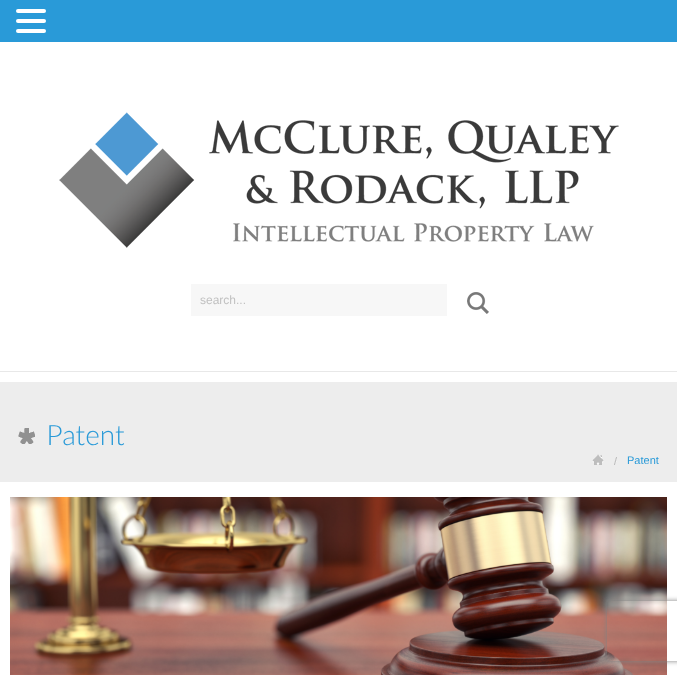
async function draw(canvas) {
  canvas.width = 677
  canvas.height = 675
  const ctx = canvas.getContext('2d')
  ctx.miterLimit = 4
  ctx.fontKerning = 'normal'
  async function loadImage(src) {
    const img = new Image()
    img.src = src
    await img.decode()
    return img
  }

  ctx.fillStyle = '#fff'
  ctx.fillRect(0, 0, 677, 675)
  ctx.fillStyle = '#299ad8'
  ctx.fillRect(0, 0, 677, 42)
  ctx.fillStyle = '#fff'
  ctx.beginPath()
  ctx.roundRect(16, 9, 30, 4, 2)
  ctx.fill()
  ctx.beginPath()
  ctx.roundRect(16, 19, 30, 4, 2)
  ctx.fill()
  ctx.beginPath()
  ctx.roundRect(16, 29, 30, 4, 2)
  ctx.fill()
  ctx.fillStyle = '#e8e8e8'
  ctx.fillRect(0, 371, 677, 1)
  ctx.drawImage(await loadImage('image0.png'), 59, 112, 560, 136)
  ctx.fillStyle = '#f7f7f7'
  ctx.fillRect(191, 284, 256, 32)
  ctx.font = '12px Liberation Sans'
  ctx.fillStyle = '#c1c1c1'
  ctx.fillText('search...', 200, 304)
  ctx.drawImage(await loadImage('image1.png'), 467, 292, 22, 22)
  ctx.fillStyle = '#ededed'
  ctx.fillRect(0, 382, 677, 100)
  ctx.drawImage(await loadImage('image2.png'), 18, 428, 17, 16)
  ctx.font = '300 28px Lato'
  ctx.fillStyle = '#299ad8'
  ctx.fillText('Patent', 46, 445)
  ctx.drawImage(await loadImage('image3.png'), 614, 457, 3, 8)
  ctx.drawImage(await loadImage('image4.png'), 592, 454, 12, 11)
  ctx.font = '11px Liberation Sans'
  ctx.fillText('Patent', 627, 464)
  ctx.drawImage(await loadImage('image5.png'), 10, 497, 657, 178)
  ctx.save()
  ctx.beginPath()
  ctx.moveTo(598, 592)
  ctx.lineTo(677, 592)
  ctx.lineTo(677, 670)
  ctx.lineTo(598, 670)
  ctx.closePath()
  ctx.moveTo(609, 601)
  ctx.lineTo(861, 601)
  ctx.bezierCurveTo(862, 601, 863, 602, 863, 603)
  ctx.lineTo(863, 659)
  ctx.bezierCurveTo(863, 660, 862, 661, 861, 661)
  ctx.lineTo(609, 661)
  ctx.bezierCurveTo(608, 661, 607, 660, 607, 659)
  ctx.lineTo(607, 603)
  ctx.bezierCurveTo(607, 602, 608, 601, 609, 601)
  ctx.closePath()
  ctx.clip('evenodd')
  ctx.fillStyle = '#808080'
  ctx.filter = 'blur(2.5px)'
  ctx.beginPath()
  ctx.roundRect(607, 601, 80, 60, 2)
  ctx.fill()
  ctx.filter = 'none'
  ctx.restore()
}

draw(document.querySelector('canvas'))
